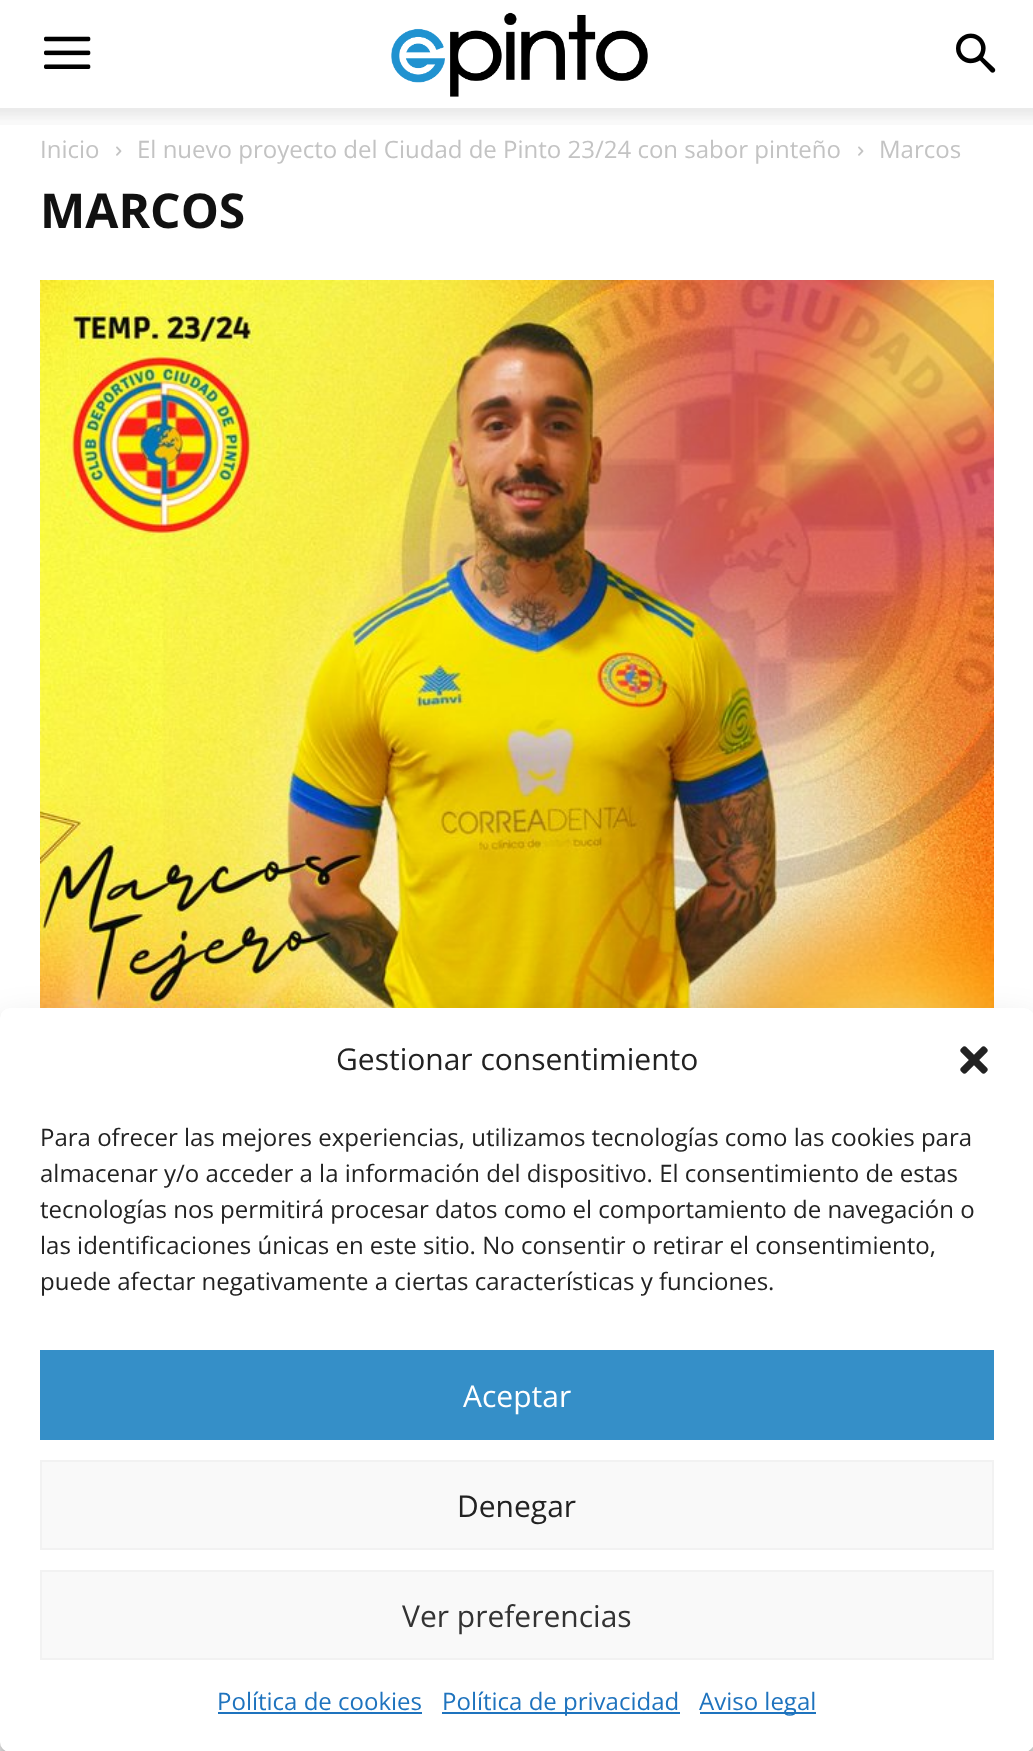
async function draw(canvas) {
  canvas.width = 1033
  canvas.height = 1751
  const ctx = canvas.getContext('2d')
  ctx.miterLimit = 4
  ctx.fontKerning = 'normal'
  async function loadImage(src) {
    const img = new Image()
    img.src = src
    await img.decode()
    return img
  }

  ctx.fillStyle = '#fff'
  ctx.fillRect(0, 0, 1033, 1751)
  ctx.drawImage(await loadImage('image0.png'), 44, 36, 47, 33)
  ctx.drawImage(await loadImage('image1.png'), 391, 12, 257, 85)
  ctx.drawImage(await loadImage('image2.png'), 956, 33, 40, 40)
  ctx.drawImage(await loadImage('image3.png'), 0, 108, 1033, 17)
  ctx.font = '24px Open Sans'
  ctx.fillStyle = '#c3c3c3'
  ctx.fillText('Inicio', 40, 158)
  ctx.drawImage(await loadImage('image4.png'), 116, 146, 6, 10)
  ctx.fillText('El nuevo proyecto del Ciudad de Pinto 23/24 con sabor pinteño', 137, 158)
  ctx.drawImage(await loadImage('image4.png'), 858, 146, 6, 10)
  ctx.fillText('Marcos', 879, 158)
  ctx.font = 'bold 48px Open Sans'
  ctx.fillStyle = '#111'
  ctx.fillText('MARCOS', 40, 228)
  ctx.drawImage(await loadImage('image5.png'), 40, 280, 954, 728)
  ctx.fillStyle = '#0000003b'
  ctx.filter = 'blur(6px)'
  ctx.beginPath()
  ctx.roundRect(0, 1020, 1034, 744, 10)
  ctx.fill()
  ctx.filter = 'none'
  ctx.fillStyle = '#00000030'
  ctx.filter = 'blur(20px)'
  ctx.beginPath()
  ctx.roundRect(0, 1028, 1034, 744, 10)
  ctx.fill()
  ctx.filter = 'none'
  ctx.fillStyle = '#fff'
  ctx.beginPath()
  ctx.roundRect(0, 1008, 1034, 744, 10)
  ctx.fill()
  ctx.font = '30px Open Sans'
  ctx.fillStyle = '#222'
  ctx.fillText('Gestionar consentimiento', 336, 1070)
  ctx.drawImage(await loadImage('image6.png'), 960, 1046, 28, 28)
  ctx.font = '24px Open Sans'
  ctx.fillText('Para ofrecer las mejores experiencias, utilizamos tecnologías como las cookies para', 40, 1146)
  ctx.fillText('almacenar y/o acceder a la información del dispositivo. El consentimiento de estas', 40, 1182)
  ctx.fillText('tecnologías nos permitirá procesar datos como el comportamiento de navegación o', 40, 1218)
  ctx.fillText('las identificaciones únicas en este sitio. No consentir o retirar el consentimiento,', 40, 1254)
  ctx.fillText('puede afectar negativamente a ciertas características y funciones.', 40, 1290)
  ctx.fillStyle = '#358fc8'
  ctx.fillRect(40, 1350, 954, 90)
  ctx.font = '30px Open Sans'
  ctx.fillStyle = '#fff'
  ctx.fillText('Aceptar', 463, 1407)
  ctx.fillStyle = '#f9f9f9'
  ctx.beginPath()
  ctx.rect(41, 1461, 952, 88)
  ctx.fill()
  ctx.strokeStyle = '#f2f2f2'
  ctx.lineWidth = 2
  ctx.stroke()
  ctx.fillStyle = '#222'
  ctx.fillText('Denegar', 457, 1517)
  ctx.fillStyle = '#f9f9f9'
  ctx.beginPath()
  ctx.rect(41, 1571, 952, 88)
  ctx.fill()
  ctx.stroke()
  ctx.fillStyle = '#333'
  ctx.fillText('Ver preferencias', 402, 1627)
  ctx.font = '24px Open Sans'
  ctx.fillStyle = '#1e73be'
  ctx.fillText('Política de cookies', 217, 1710)
  ctx.fillRect(218, 1712, 204, 2)
  ctx.fillRect(442, 1712, 238, 2)
  ctx.fillText('Política de privacidad', 442, 1710)
  ctx.fillRect(700, 1712, 116, 2)
  ctx.fillText('Aviso legal', 699, 1710)
}

draw(document.querySelector('canvas'))
